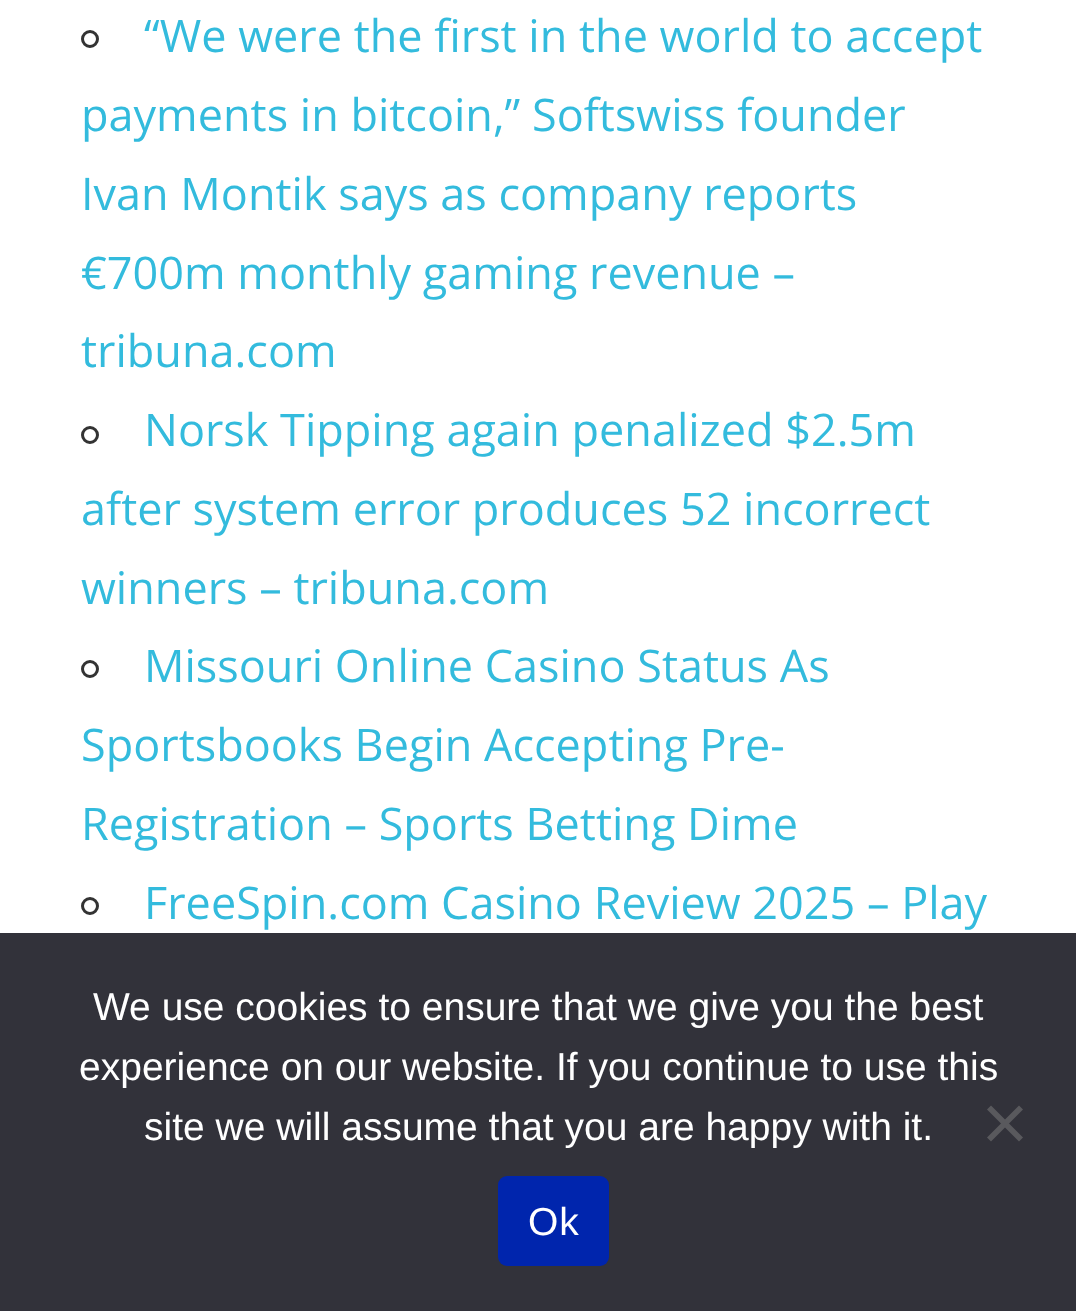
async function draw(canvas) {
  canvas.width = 1076
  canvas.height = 1311
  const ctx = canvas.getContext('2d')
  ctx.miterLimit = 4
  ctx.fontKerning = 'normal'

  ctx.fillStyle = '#fff'
  ctx.fillRect(0, 0, 1076, 1311)
  ctx.beginPath()
  ctx.arc(90, 39, 7.5, 0, 2 * Math.PI)
  ctx.strokeStyle = '#333'
  ctx.lineWidth = 3
  ctx.stroke()
  ctx.font = '45px Open Sans'
  ctx.fillStyle = '#3bd'
  ctx.fillText('“We were the first in the world to accept', 144, 52)
  ctx.fillText('payments in bitcoin,” Softswiss founder', 81, 131)
  ctx.fillText('Ivan Montik says as company reports', 81, 210)
  ctx.fillText('€700m monthly gaming revenue –', 81, 289)
  ctx.fillText('tribuna.com', 81, 367)
  ctx.beginPath()
  ctx.arc(90, 435, 7.5, 0, 2 * Math.PI)
  ctx.stroke()
  ctx.fillText('Norsk Tipping again penalized $2.5m', 144, 446)
  ctx.fillText('after system error produces 52 incorrect', 81, 525)
  ctx.fillText('winners – tribuna.com', 81, 604)
  ctx.beginPath()
  ctx.arc(90, 669, 7.5, 0, 2 * Math.PI)
  ctx.stroke()
  ctx.fillText('Missouri Online Casino Status As', 144, 682)
  ctx.fillText('Sportsbooks Begin Accepting Pre-', 81, 761)
  ctx.fillText('Registration – Sports Betting Dime', 81, 840)
  ctx.beginPath()
  ctx.arc(90, 906, 7.5, 0, 2 * Math.PI)
  ctx.stroke()
  ctx.fillText('FreeSpin.com Casino Review 2025 – Play', 144, 919)
  ctx.fillStyle = '#32323a'
  ctx.fillRect(0, 933, 1076, 378)
  ctx.font = '39px Liberation Sans'
  ctx.fillStyle = '#fff'
  ctx.fillText('We use cookies to ensure that we give you the best', 93, 1020)
  ctx.fillText('experience on our website. If you continue to use this', 79, 1080)
  ctx.fillText('site we will assume that you are happy with it.', 144, 1140)
  ctx.fillStyle = '#59595d'
  ctx.beginPath()
  ctx.moveTo(1019, 1105.5)
  ctx.lineTo(1023, 1109.5)
  ctx.lineTo(991, 1141.5)
  ctx.lineTo(987, 1137.5)
  ctx.closePath()
  ctx.fill()
  ctx.beginPath()
  ctx.moveTo(987, 1109.5)
  ctx.lineTo(991, 1105.5)
  ctx.lineTo(1023, 1137.5)
  ctx.lineTo(1019, 1141.5)
  ctx.closePath()
  ctx.fill()
  ctx.fillStyle = '#0025ad'
  ctx.beginPath()
  ctx.roundRect(498, 1176, 111, 90, 9)
  ctx.fill()
  ctx.letterSpacing = '1px'
  ctx.fillStyle = '#fff'
  ctx.fillText('Ok', 528, 1235)
}

draw(document.querySelector('canvas'))
